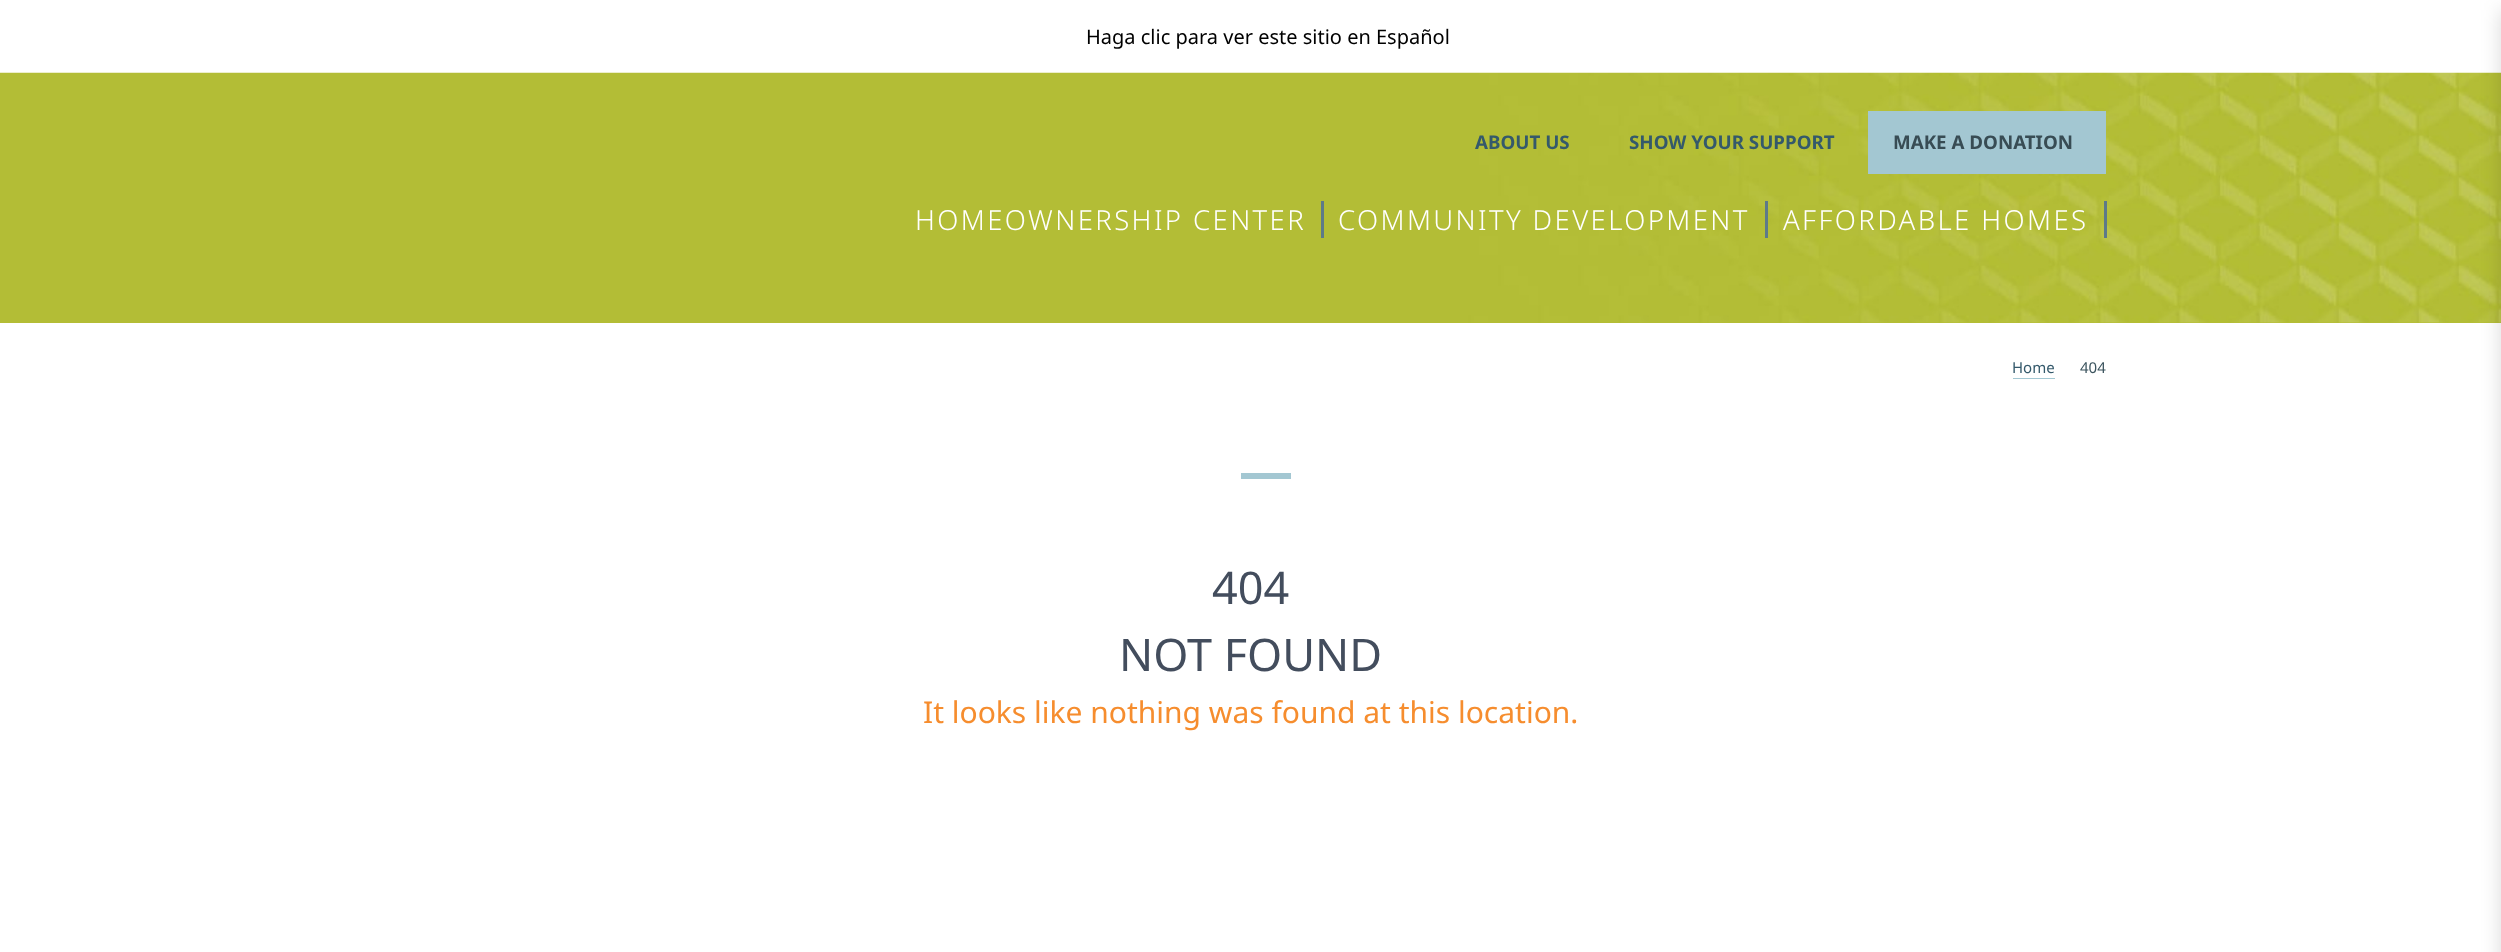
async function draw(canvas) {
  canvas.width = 2501
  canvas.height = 952
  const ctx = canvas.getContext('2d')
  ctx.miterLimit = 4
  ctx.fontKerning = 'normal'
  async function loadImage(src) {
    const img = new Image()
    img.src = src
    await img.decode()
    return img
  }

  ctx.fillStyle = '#fff'
  ctx.fillRect(0, 0, 2501, 952)
  ctx.font = '20px Noto Sans'
  ctx.fillStyle = '#000'
  ctx.fillText('Haga clic para ver este sitio en Español', 1086, 44)
  ctx.fillStyle = '#b4bd35'
  ctx.fillRect(0, 322, 2501, 1)
  ctx.drawImage(await loadImage('image0.png'), 0, 72, 2501, 251)
  ctx.font = 'bold 18.75px Noto Sans'
  ctx.fillStyle = '#34596b'
  ctx.fillText('ABOUT US', 1475, 149)
  ctx.fillText('SHOW YOUR SUPPORT', 1629, 149)
  ctx.fillStyle = '#a3c7d2'
  ctx.fillRect(1868, 111, 238, 63)
  ctx.fillStyle = '#384c54'
  ctx.fillText('MAKE A DONATION', 1893, 149)
  ctx.fillStyle = '#5d7a89'
  ctx.fillRect(1321, 201, 3, 37)
  ctx.letterSpacing = '2.4px'
  ctx.font = '300 27.5px Noto Sans'
  ctx.fillStyle = '#fff'
  ctx.fillText('HOMEOWNERSHIP CENTER', 915, 230)
  ctx.fillStyle = '#5d7a89'
  ctx.fillRect(1765, 201, 3, 37)
  ctx.fillStyle = '#fff'
  ctx.fillText('COMMUNITY DEVELOPMENT', 1338, 230)
  ctx.fillStyle = '#5d7a89'
  ctx.fillRect(2104, 201, 3, 37)
  ctx.fillStyle = '#fff'
  ctx.fillText('AFFORDABLE HOMES', 1783, 230)
  ctx.letterSpacing = '0px'
  ctx.font = '15px Noto Sans'
  ctx.fillStyle = '#34596b'
  ctx.fillText('Home', 2012, 373)
  ctx.fillStyle = '#a3c7d2'
  ctx.fillRect(2013, 378, 42, 1)
  ctx.fillStyle = '#3c545e'
  ctx.fillText('404', 2080, 373)
  ctx.fillStyle = '#a3c7d2'
  ctx.fillRect(1241, 473, 50, 6)
  ctx.font = '45px Noto Sans'
  ctx.fillStyle = '#434d5d'
  ctx.fillText('404', 1212, 604)
  ctx.fillText('NOT FOUND', 1119, 671)
  ctx.font = '30px Noto Sans'
  ctx.fillStyle = '#f68d2e'
  ctx.fillText('It looks like nothing was found at this location.', 923, 723)
  ctx.fillStyle = '#00000026'
  ctx.filter = 'blur(10px)'
  ctx.beginPath()
  ctx.rect(2501, 10, 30, 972)
  ctx.fill()
  ctx.filter = 'none'
}

draw(document.querySelector('canvas'))
